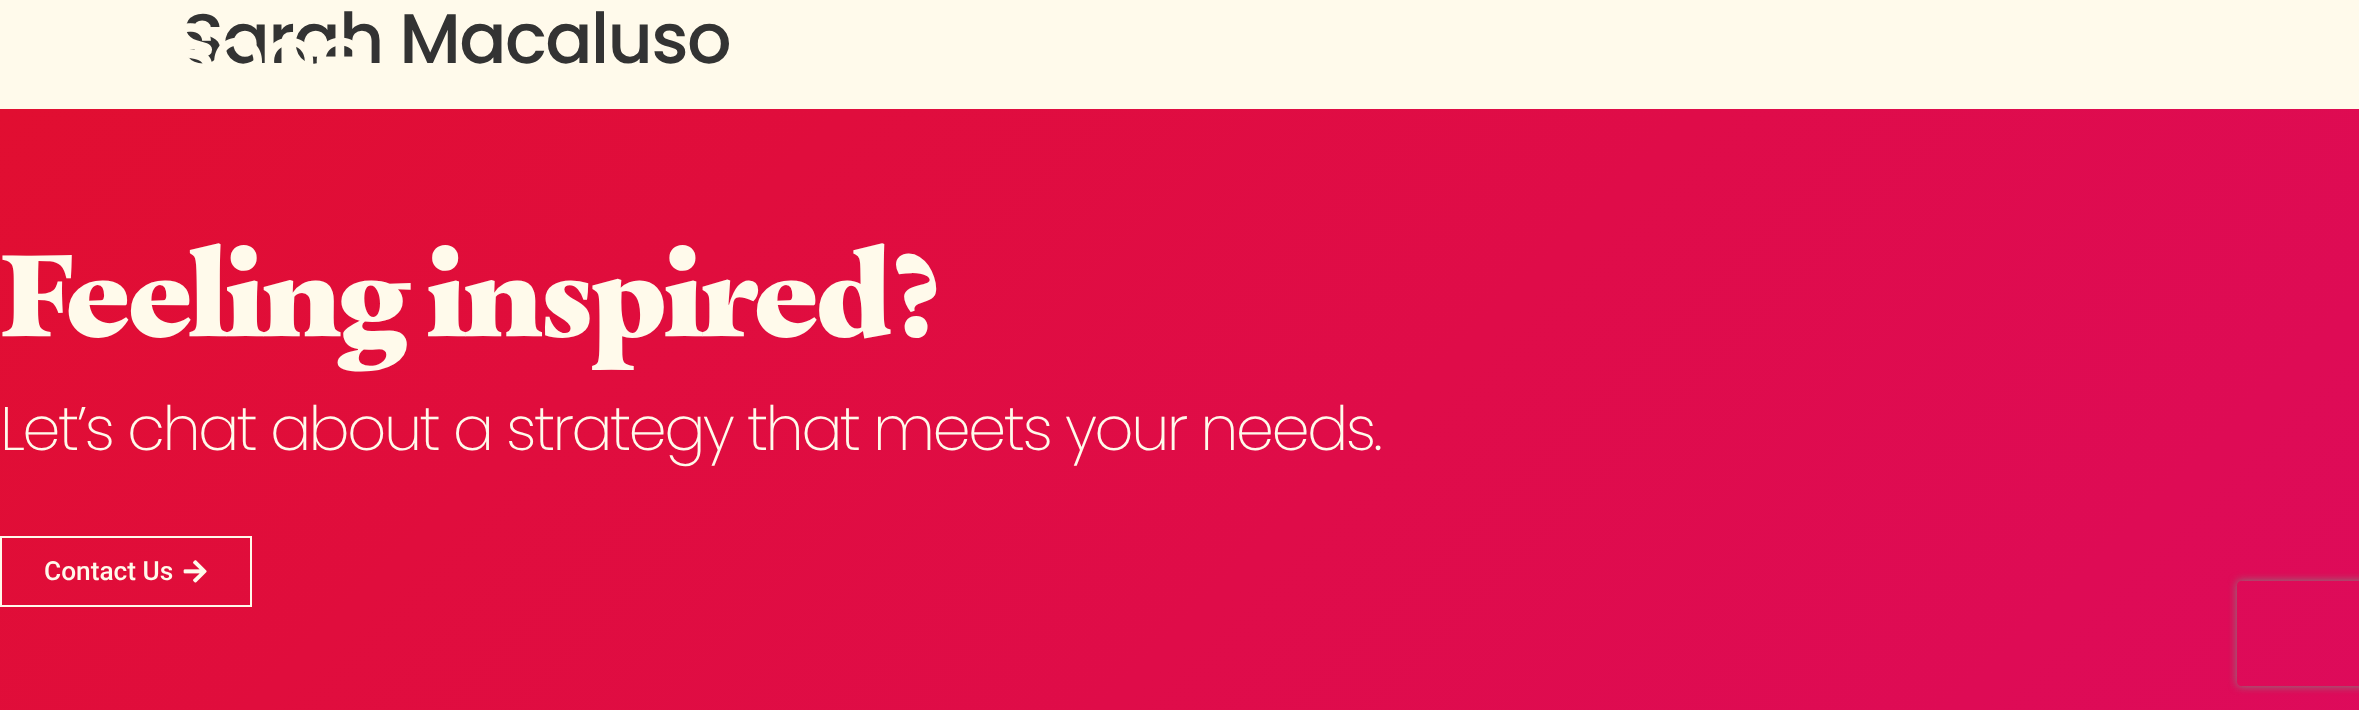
async function draw(canvas) {
  canvas.width = 2359
  canvas.height = 710
  const ctx = canvas.getContext('2d')
  ctx.miterLimit = 4
  ctx.fontKerning = 'normal'
  async function loadImage(src) {
    const img = new Image()
    img.src = src
    await img.decode()
    return img
  }
  let gradient

  ctx.fillStyle = '#fffaeb'
  ctx.fillRect(0, 0, 2359, 710)
  ctx.letterSpacing = '-1.75px'
  ctx.font = '500 70px Poppins'
  ctx.fillStyle = '#333'
  ctx.fillText('Sarah Macaluso', 182, 63)
  ctx.drawImage(await loadImage('image0.png'), 186, 23, 167, 41)
  gradient = ctx.createLinearGradient(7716, 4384, 1720, -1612)
  gradient.addColorStop(0, '#d300da')
  gradient.addColorStop(1, '#e10e31')
  ctx.fillStyle = gradient
  ctx.fillRect(0, 109, 2359, 601)
  ctx.letterSpacing = '-3.5px'
  ctx.font = '900 131.25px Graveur'
  ctx.fillStyle = '#fffaeb'
  ctx.fillText('Feeling inspired?', 0, 336)
  ctx.letterSpacing = '-2.62px'
  ctx.font = '200 61.25px Poppins'
  ctx.fillText('Let’s chat about a strategy that meets your needs.', 0, 450)
  ctx.strokeStyle = '#fffaeb'
  ctx.lineWidth = 2
  ctx.strokeRect(1, 537, 250, 69)
  ctx.letterSpacing = '0px'
  ctx.font = '500 26.25px Roboto'
  ctx.fillText('Contact Us', 44, 580)
  ctx.drawImage(await loadImage('image1.png'), 183, 560, 24, 23)
  ctx.save()
  ctx.beginPath()
  ctx.moveTo(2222, 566)
  ctx.lineTo(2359, 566)
  ctx.lineTo(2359, 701)
  ctx.lineTo(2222, 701)
  ctx.closePath()
  ctx.moveTo(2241, 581)
  ctx.lineTo(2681, 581)
  ctx.bezierCurveTo(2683, 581, 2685, 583, 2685, 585)
  ctx.lineTo(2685, 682)
  ctx.bezierCurveTo(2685, 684, 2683, 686, 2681, 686)
  ctx.lineTo(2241, 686)
  ctx.bezierCurveTo(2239, 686, 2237, 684, 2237, 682)
  ctx.lineTo(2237, 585)
  ctx.bezierCurveTo(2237, 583, 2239, 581, 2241, 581)
  ctx.closePath()
  ctx.clip('evenodd')
  ctx.fillStyle = '#808080'
  ctx.filter = 'blur(4.5px)'
  ctx.beginPath()
  ctx.roundRect(2237, 581, 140, 105, 4)
  ctx.fill()
  ctx.filter = 'none'
  ctx.restore()
}

draw(document.querySelector('canvas'))
